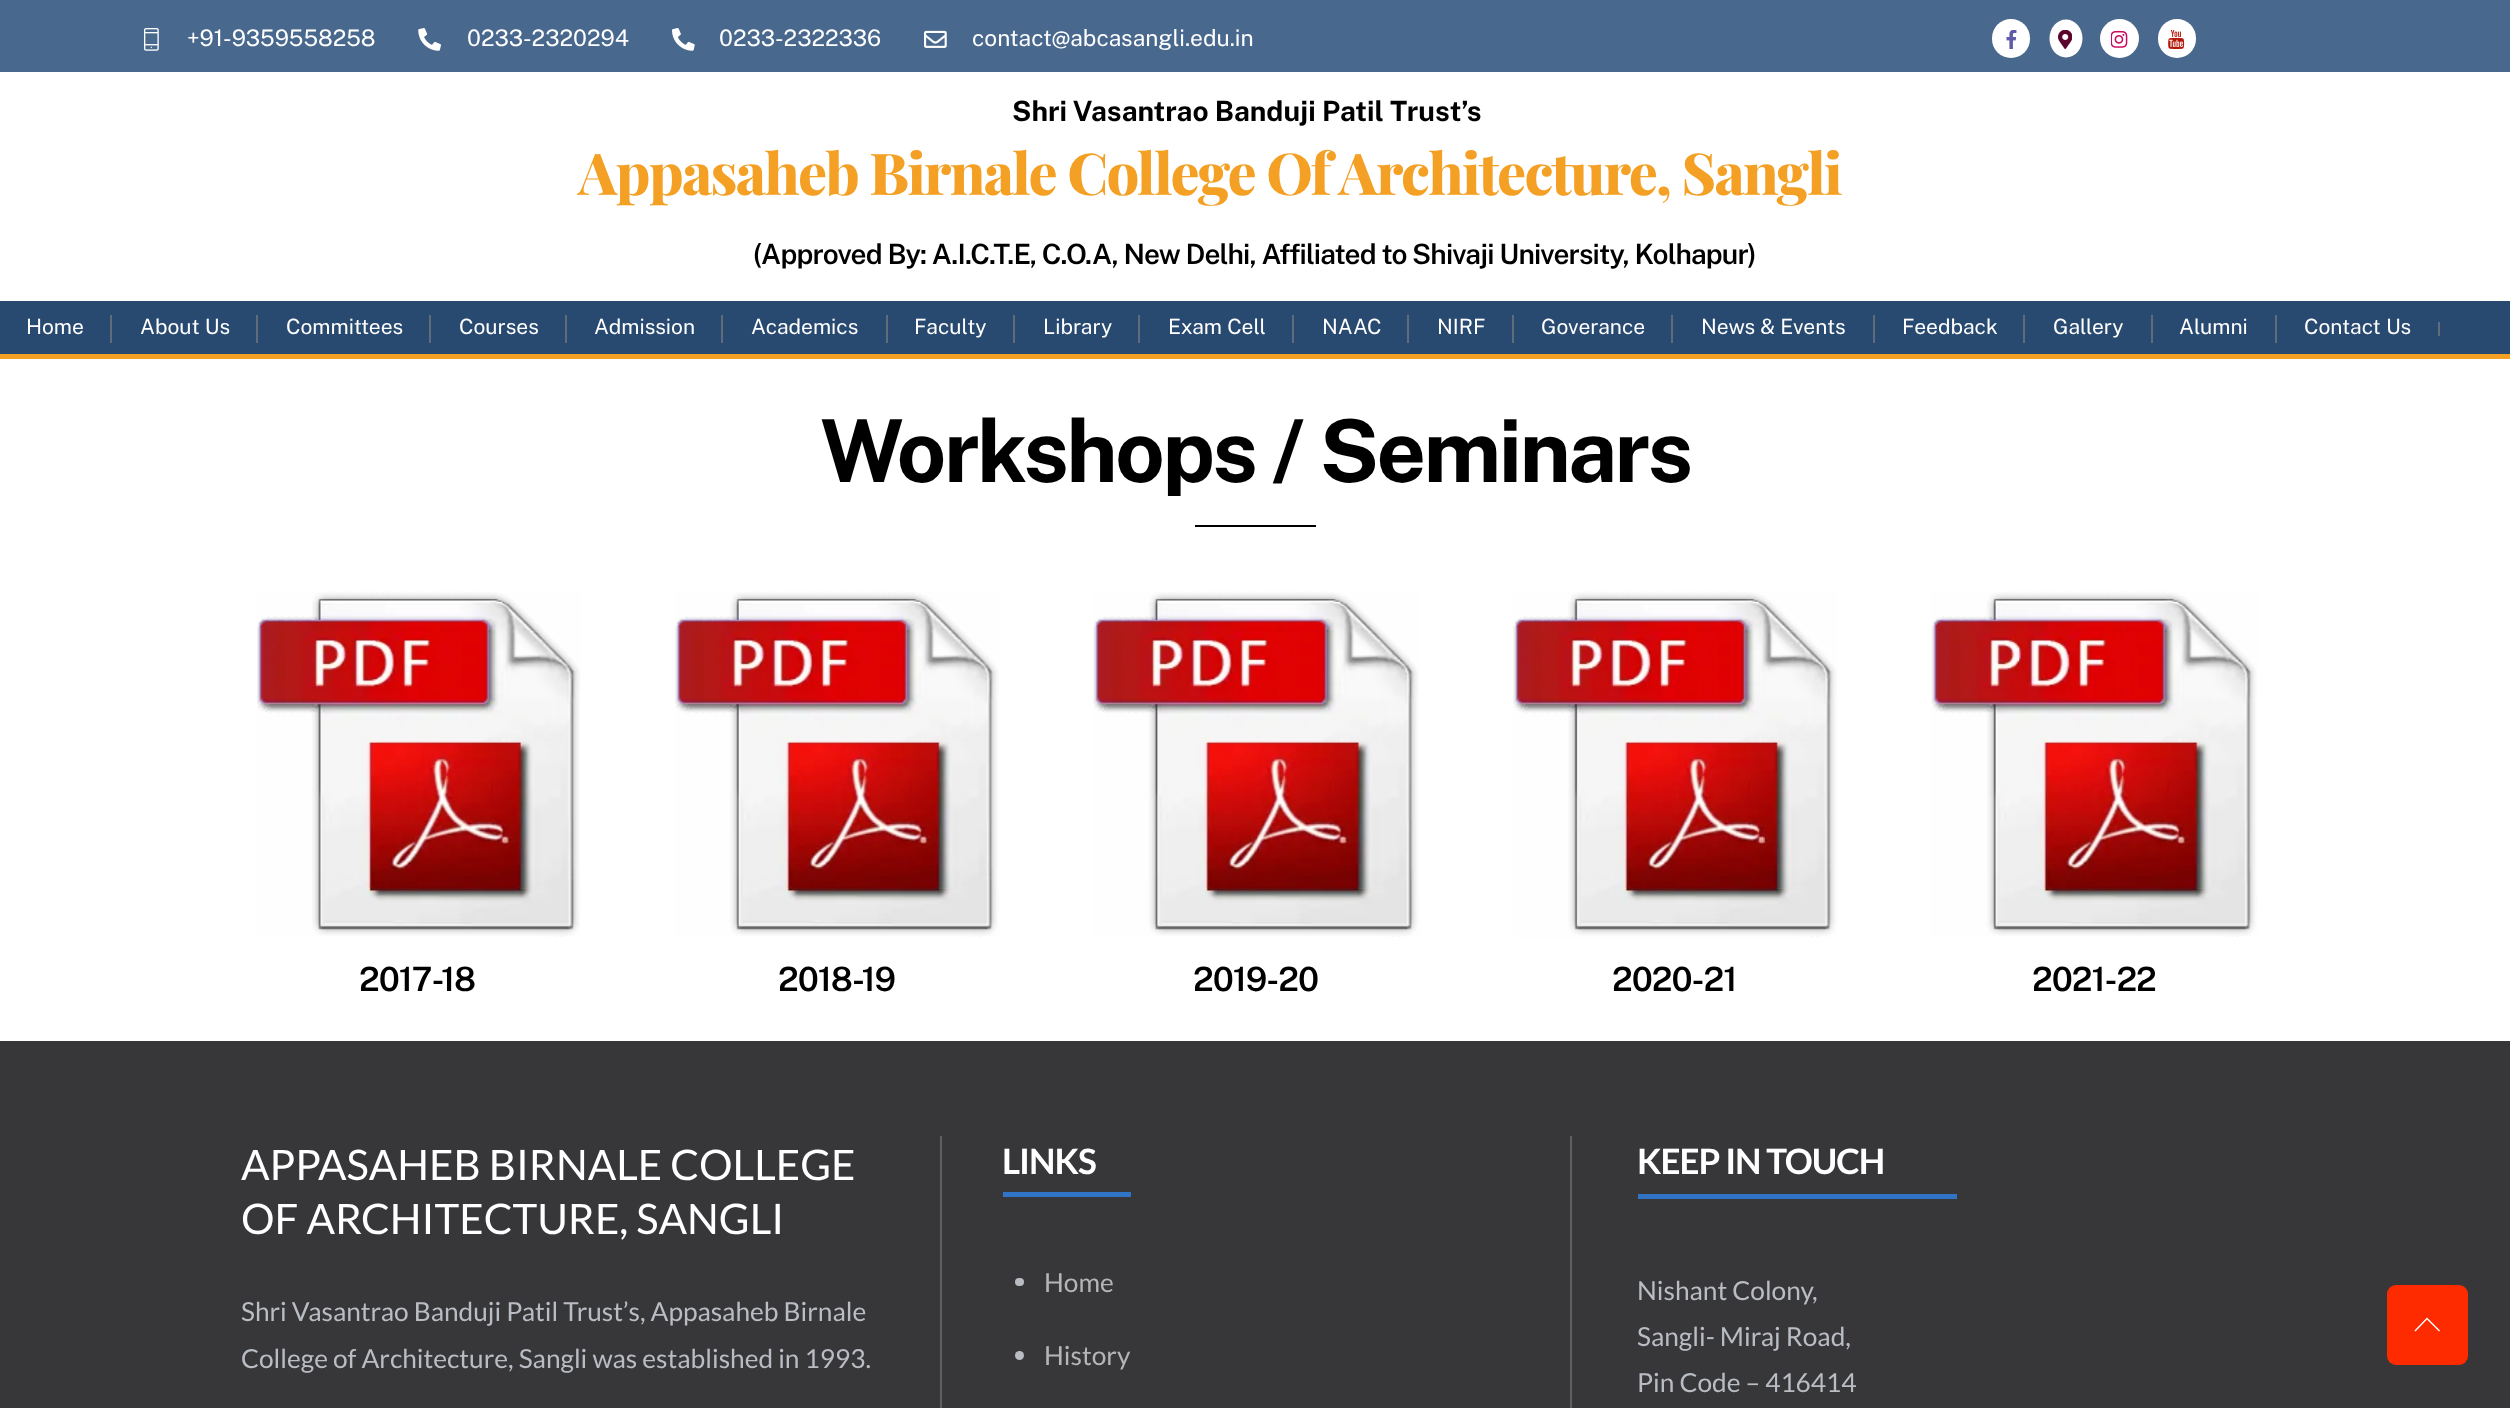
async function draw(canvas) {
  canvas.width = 2510
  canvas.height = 1408
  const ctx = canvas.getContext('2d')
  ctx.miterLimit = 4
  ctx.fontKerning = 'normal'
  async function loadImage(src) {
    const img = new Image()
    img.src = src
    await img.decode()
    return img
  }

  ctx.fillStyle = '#fff'
  ctx.fillRect(0, 0, 2510, 1408)
  ctx.fillStyle = '#49688e'
  ctx.fillRect(0, 0, 2510, 72)
  ctx.drawImage(await loadImage('image0.png'), 144, 28, 15, 23)
  ctx.font = '22.75px Public Sans'
  ctx.fillStyle = '#fff'
  ctx.fillText('+91-9359558258', 187, 46)
  ctx.drawImage(await loadImage('image1.png'), 418, 28, 23, 23)
  ctx.fillText('0233-2320294', 467, 46)
  ctx.drawImage(await loadImage('image2.png'), 672, 28, 23, 23)
  ctx.fillText('0233-2322336', 719, 46)
  ctx.drawImage(await loadImage('image3.png'), 924, 30, 23, 18)
  ctx.fillText('contact@abcasangli.edu.in', 972, 46)
  ctx.beginPath()
  ctx.roundRect(1992, 19, 38, 39, 19)
  ctx.fill()
  ctx.drawImage(await loadImage('image4.png'), 2006, 30, 11, 19)
  ctx.beginPath()
  ctx.ellipse(2066, 38.5, 16.5, 19, 0, 0, 2 * Math.PI)
  ctx.fill()
  ctx.drawImage(await loadImage('image5.png'), 2058, 30, 14, 19)
  ctx.beginPath()
  ctx.arc(2119.5, 38.5, 19.5, 0, 2 * Math.PI)
  ctx.fill()
  ctx.drawImage(await loadImage('image6.png'), 2111, 30, 17, 18)
  ctx.beginPath()
  ctx.roundRect(2158, 19, 38, 39, 19)
  ctx.fill()
  ctx.drawImage(await loadImage('image7.png'), 2168, 30, 17, 19)
  ctx.font = 'bold 28px Public Sans'
  ctx.fillStyle = '#000'
  ctx.fillText('Shri Vasantrao Banduji Patil Trust’s', 1012, 121)
  ctx.letterSpacing = '-1.75px'
  ctx.font = '800 57.75px Playfair Display'
  ctx.fillStyle = '#f4a024'
  ctx.fillText('Appasaheb Birnale College Of Architecture, Sangli', 578, 195)
  ctx.letterSpacing = '-0.85px'
  ctx.font = '600 28px Public Sans'
  ctx.fillStyle = '#000'
  ctx.fillText('(Approved By: A.I.C.T.E, C.O.A, New Delhi, Affiliated to Shivaji University, Kolhapur)', 753, 264)
  ctx.fillStyle = '#294a70'
  ctx.fillRect(0, 301, 2510, 53)
  ctx.fillStyle = '#f4a024'
  ctx.fillRect(0, 354, 2510, 5)
  ctx.fillStyle = '#606c7a'
  ctx.fillRect(110, 315, 2, 28)
  ctx.letterSpacing = '0px'
  ctx.font = '21px Public Sans'
  ctx.fillStyle = '#fff'
  ctx.fillText('Home', 26, 334)
  ctx.fillStyle = '#606c7a'
  ctx.fillRect(256, 315, 2, 28)
  ctx.fillStyle = '#fff'
  ctx.fillText('About Us', 140, 334)
  ctx.fillStyle = '#606c7a'
  ctx.fillRect(429, 315, 2, 28)
  ctx.fillStyle = '#fff'
  ctx.fillText('Committees', 286, 334)
  ctx.fillStyle = '#606c7a'
  ctx.fillRect(565, 315, 2, 28)
  ctx.fillStyle = '#fff'
  ctx.fillText('Courses', 459, 334)
  ctx.fillStyle = '#606c7a'
  ctx.fillRect(721, 315, 2, 28)
  ctx.fillStyle = '#fff'
  ctx.fillText('Admission', 594, 334)
  ctx.fillStyle = '#606c7a'
  ctx.fillRect(886, 315, 2, 28)
  ctx.fillStyle = '#fff'
  ctx.fillText('Academics', 751, 334)
  ctx.fillStyle = '#606c7a'
  ctx.fillRect(1013, 315, 2, 28)
  ctx.fillStyle = '#fff'
  ctx.fillText('Faculty', 914, 334)
  ctx.fillStyle = '#606c7a'
  ctx.fillRect(1138, 315, 2, 28)
  ctx.fillStyle = '#fff'
  ctx.fillText('Library', 1043, 334)
  ctx.fillStyle = '#606c7a'
  ctx.fillRect(1292, 315, 2, 28)
  ctx.fillStyle = '#fff'
  ctx.fillText('Exam Cell', 1168, 334)
  ctx.fillStyle = '#606c7a'
  ctx.fillRect(1407, 315, 2, 28)
  ctx.fillStyle = '#fff'
  ctx.fillText('NAAC', 1322, 334)
  ctx.fillStyle = '#606c7a'
  ctx.fillRect(1512, 315, 2, 28)
  ctx.fillStyle = '#fff'
  ctx.fillText('NIRF', 1437, 334)
  ctx.fillStyle = '#606c7a'
  ctx.fillRect(1671, 315, 2, 28)
  ctx.fillStyle = '#fff'
  ctx.fillText('Goverance', 1541, 334)
  ctx.fillStyle = '#606c7a'
  ctx.fillRect(1873, 315, 2, 28)
  ctx.fillStyle = '#fff'
  ctx.fillText('News & Events', 1701, 334)
  ctx.fillStyle = '#606c7a'
  ctx.fillRect(2023, 315, 2, 28)
  ctx.fillStyle = '#fff'
  ctx.fillText('Feedback', 1902, 334)
  ctx.fillStyle = '#606c7a'
  ctx.fillRect(2151, 315, 2, 28)
  ctx.fillStyle = '#fff'
  ctx.fillText('Gallery', 2053, 334)
  ctx.fillStyle = '#606c7a'
  ctx.fillRect(2275, 315, 2, 28)
  ctx.fillStyle = '#fff'
  ctx.fillText('Alumni', 2179, 334)
  ctx.fillStyle = '#606c7a'
  ctx.fillRect(2438, 322, 2, 14)
  ctx.fillStyle = '#fff'
  ctx.fillText('Contact Us', 2304, 334)
  ctx.letterSpacing = '-2.6px'
  ctx.font = 'bold 86.75px Public Sans'
  ctx.fillStyle = '#000'
  ctx.fillText('Workshops / Seminars', 820, 482)
  ctx.fillRect(1195, 525, 121, 2)
  ctx.drawImage(await loadImage('image8.png'), 257, 591, 324, 346)
  ctx.letterSpacing = '-1px'
  ctx.font = '600 33.5px Public Sans'
  ctx.fillText('2017-18', 359, 991)
  ctx.drawImage(await loadImage('image9.png'), 675, 591, 325, 346)
  ctx.fillText('2018-19', 778, 991)
  ctx.drawImage(await loadImage('image10.png'), 1093, 591, 327, 346)
  ctx.fillText('2019-20', 1193, 991)
  ctx.drawImage(await loadImage('image11.png'), 1513, 591, 325, 347)
  ctx.fillText('2020-21', 1612, 991)
  ctx.drawImage(await loadImage('image12.png'), 1931, 591, 327, 346)
  ctx.fillText('2021-22', 2032, 991)
  ctx.fillStyle = '#37373a'
  ctx.fillRect(0, 1041, 2510, 367)
  ctx.letterSpacing = '0px'
  ctx.font = '42px Lato'
  ctx.fillStyle = '#fff'
  ctx.fillText('APPASAHEB BIRNALE COLLEGE', 241, 1180)
  ctx.fillText('OF ARCHITECTURE, SANGLI', 241, 1234)
  ctx.font = '26.25px Lato'
  ctx.fillStyle = '#b9bdc3'
  ctx.fillText('Shri Vasantrao Banduji Patil Trust’s, Appasaheb Birnale', 241, 1321)
  ctx.fillText('College of Architecture, Sangli was established in 1993.', 241, 1368)
  ctx.fillStyle = '#5f5f61'
  ctx.fillRect(1570, 1136, 2, 272)
  ctx.fillRect(940, 1136, 2, 272)
  ctx.letterSpacing = '-1px'
  ctx.font = 'bold 35px Lato'
  ctx.fillStyle = '#fff'
  ctx.fillText('LINKS', 1002, 1174)
  ctx.fillStyle = '#3173c4'
  ctx.fillRect(1003, 1192, 128, 5)
  ctx.fillStyle = '#b9bdc3'
  ctx.beginPath()
  ctx.roundRect(1015, 1278, 9, 8, 4)
  ctx.fill()
  ctx.letterSpacing = '0px'
  ctx.font = '26.25px Lato'
  ctx.fillStyle = '#b5b5b5'
  ctx.fillText('Home', 1044, 1292)
  ctx.fillStyle = '#b9bdc3'
  ctx.beginPath()
  ctx.arc(1019.5, 1355.5, 4.5, 0, 2 * Math.PI)
  ctx.fill()
  ctx.fillStyle = '#b5b5b5'
  ctx.fillText('History', 1044, 1365)
  ctx.letterSpacing = '-1px'
  ctx.font = 'bold 35px Lato'
  ctx.fillStyle = '#fff'
  ctx.fillText('KEEP IN TOUCH', 1637, 1174)
  ctx.fillStyle = '#3173c4'
  ctx.fillRect(1638, 1194, 319, 5)
  ctx.letterSpacing = '0px'
  ctx.font = '26.25px Lato'
  ctx.fillStyle = '#b9bdc3'
  ctx.fillText('Nishant Colony,', 1637, 1300)
  ctx.fillText('Sangli- Miraj Road,', 1637, 1346)
  ctx.fillText('Pin Code – 416414', 1637, 1392)
  ctx.fillStyle = '#ff2b00'
  ctx.beginPath()
  ctx.roundRect(2387, 1285, 81, 80, 9)
  ctx.fill()
  ctx.fillStyle = '#fff'
  ctx.beginPath()
  ctx.moveTo(2440, 1330.5)
  ctx.lineTo(2427, 1317.5)
  ctx.lineTo(2414.5, 1330.5)
  ctx.lineTo(2415.5, 1331.5)
  ctx.lineTo(2427, 1319.5)
  ctx.lineTo(2439, 1331.5)
  ctx.closePath()
  ctx.fill()
}

draw(document.querySelector('canvas'))
